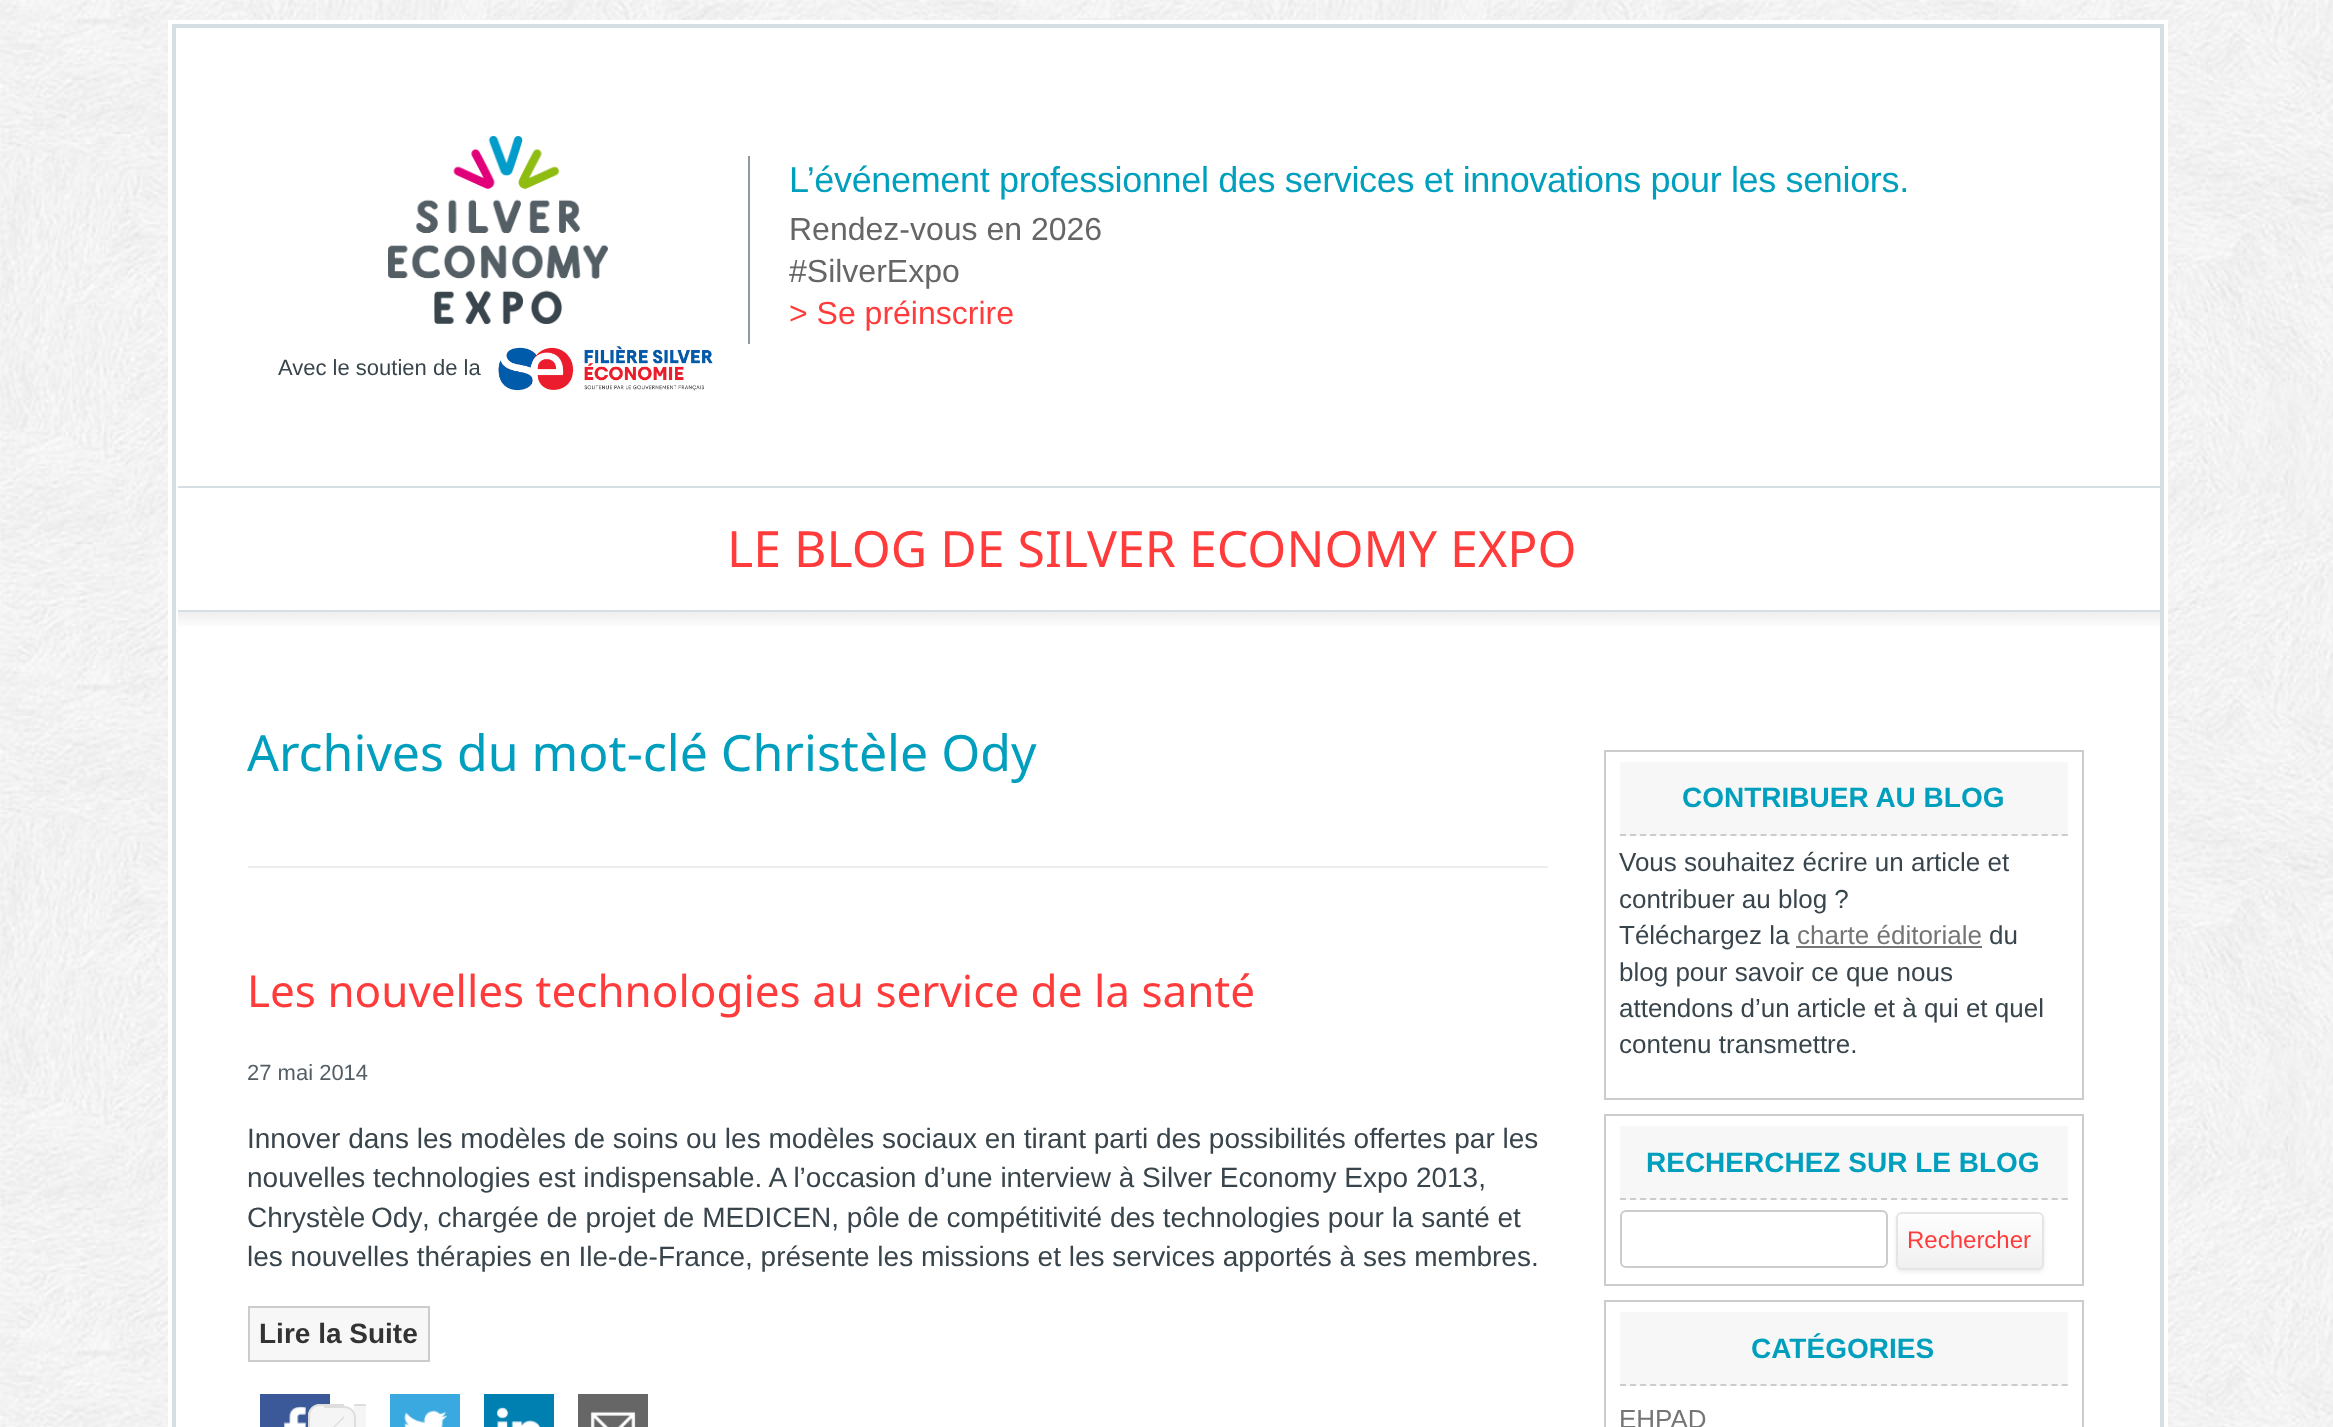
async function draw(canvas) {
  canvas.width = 2333
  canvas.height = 1427
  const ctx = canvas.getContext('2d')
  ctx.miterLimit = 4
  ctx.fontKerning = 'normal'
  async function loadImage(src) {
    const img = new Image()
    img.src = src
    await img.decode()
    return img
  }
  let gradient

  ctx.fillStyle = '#fff'
  ctx.fillRect(0, 0, 2333, 1427)
  ctx.drawImage(await loadImage('image0.png'), 0, 0, 2333, 1427)
  ctx.strokeStyle = '#fff'
  ctx.lineWidth = 4
  ctx.strokeRect(170, 22, 1996, 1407)
  ctx.beginPath()
  ctx.rect(174, 26, 1988, 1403)
  ctx.fill()
  ctx.strokeStyle = '#d5dee3'
  ctx.stroke()
  ctx.fillStyle = '#91999f'
  ctx.fillRect(748, 156, 2, 188)
  ctx.letterSpacing = '-0.35px'
  ctx.font = '36px Liberation Sans'
  ctx.fillStyle = '#009fbd'
  ctx.fillText('L’événement professionnel des services et innovations pour les seniors.', 789, 192)
  ctx.letterSpacing = '0px'
  ctx.font = '32px Liberation Sans'
  ctx.fillStyle = '#666'
  ctx.fillText('Rendez-vous en 2026', 789, 240)
  ctx.fillText('#SilverExpo', 789, 282)
  ctx.fillStyle = '#ff3c3b'
  ctx.fillText('> Se préinscrire', 789, 324)
  ctx.drawImage(await loadImage('image1.png'), 388, 136, 220, 188)
  ctx.font = '22px Liberation Sans'
  ctx.fillStyle = '#39454c'
  ctx.fillText('Avec le soutien de la', 278, 375)
  ctx.drawImage(await loadImage('image2.png'), 498, 346, 215, 45)
  ctx.fillStyle = '#d5dee3'
  ctx.fillRect(178, 486, 1982, 2)
  ctx.font = '50px Noto Sans'
  ctx.fillStyle = '#ff3c3b'
  ctx.fillText('LE BLOG DE SILVER ECONOMY EXPO', 727, 567)
  ctx.drawImage(await loadImage('image3.png'), 178, 612, 1982, 14)
  ctx.fillStyle = '#d5dee3'
  ctx.fillRect(178, 610, 1982, 2)
  ctx.fillStyle = '#ededed'
  ctx.fillRect(248, 866, 1300, 2)
  ctx.fillStyle = '#009fbd'
  ctx.fillText('Archives du mot-clé Christèle Ody', 247, 771)
  ctx.font = '44px Noto Sans'
  ctx.fillStyle = '#ff3c3b'
  ctx.fillText('Les nouvelles technologies au service de la santé', 247, 1007)
  ctx.font = '22px Liberation Sans'
  ctx.fillStyle = '#545e65'
  ctx.fillText('27 mai 2014', 247, 1080)
  ctx.font = '28px Liberation Sans'
  ctx.fillStyle = '#39454c'
  ctx.fillText('Innover dans les modèles de soins ou les modèles sociaux en tirant parti des possibilités offertes par les', 247, 1148)
  ctx.fillText('nouvelles technologies est indispensable. A l’occasion d’une interview à Silver Economy Expo 2013,', 247, 1187)
  ctx.wordSpacing = '-2px'
  ctx.fillText('Chrystèle Ody', 247, 1227)
  ctx.wordSpacing = '0px'
  ctx.fillText(', chargée de projet de MEDICEN, pôle de compétitivité des technologies pour la santé et', 422, 1227)
  ctx.fillText('les nouvelles thérapies en Ile-de-France, présente les missions et les services apportés à ses membres.', 247, 1266)
  ctx.fillStyle = '#f7f7f7'
  ctx.beginPath()
  ctx.rect(249, 1307, 180, 54)
  ctx.fill()
  ctx.strokeStyle = '#ccc'
  ctx.lineWidth = 2
  ctx.stroke()
  ctx.font = 'bold 28px Liberation Sans'
  ctx.fillStyle = '#333'
  ctx.fillText('Lire la Suite', 259, 1343)
  ctx.drawImage(await loadImage('image4.png'), 260, 1394, 70, 33)
  ctx.fillStyle = '#f5f5f5'
  ctx.beginPath()
  ctx.moveTo(320, 1404)
  ctx.lineTo(344, 1404)
  ctx.lineTo(344, 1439)
  ctx.lineTo(320, 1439)
  ctx.bezierCurveTo(313.5, 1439, 308, 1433.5, 308, 1427)
  ctx.lineTo(308, 1416)
  ctx.bezierCurveTo(308, 1409.5, 313.5, 1404, 320, 1404)
  ctx.closePath()
  ctx.fill()
  ctx.fillStyle = '#e0dddd'
  ctx.beginPath()
  ctx.moveTo(320, 1404)
  ctx.lineTo(344, 1404)
  ctx.lineTo(344, 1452)
  ctx.lineTo(320, 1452)
  ctx.bezierCurveTo(313, 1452, 308, 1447, 308, 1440)
  ctx.lineTo(308, 1416)
  ctx.bezierCurveTo(308, 1409, 313, 1404, 320, 1404)
  ctx.closePath()
  ctx.moveTo(320, 1406)
  ctx.lineTo(344, 1406)
  ctx.lineTo(344, 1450)
  ctx.lineTo(320, 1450)
  ctx.bezierCurveTo(314, 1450, 310, 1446, 310, 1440)
  ctx.lineTo(310, 1416)
  ctx.bezierCurveTo(310, 1410, 314, 1406, 320, 1406)
  ctx.closePath()
  ctx.fill('evenodd')
  ctx.fillStyle = '#f5f5f5'
  ctx.fillRect(354, 1406, 12, 21)
  ctx.fillStyle = '#e0dddd'
  ctx.fillRect(354, 1404, 12, 2)
  ctx.fillStyle = '#f5f5f5'
  ctx.beginPath()
  ctx.moveTo(324, 1406)
  ctx.lineTo(344, 1406)
  ctx.bezierCurveTo(350.5, 1406, 356, 1411.5, 356, 1418)
  ctx.lineTo(356, 1427)
  ctx.bezierCurveTo(356, 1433.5, 350.5, 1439, 344, 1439)
  ctx.lineTo(324, 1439)
  ctx.closePath()
  ctx.fill()
  ctx.fillStyle = '#e0dddd'
  ctx.beginPath()
  ctx.moveTo(324, 1406)
  ctx.lineTo(344, 1406)
  ctx.bezierCurveTo(351, 1406, 356, 1411, 356, 1418)
  ctx.lineTo(356, 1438)
  ctx.bezierCurveTo(356, 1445, 351, 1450, 344, 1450)
  ctx.lineTo(324, 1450)
  ctx.closePath()
  ctx.moveTo(324, 1408)
  ctx.lineTo(344, 1408)
  ctx.bezierCurveTo(350, 1408, 354, 1412, 354, 1418)
  ctx.lineTo(354, 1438)
  ctx.bezierCurveTo(354, 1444, 350, 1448, 344, 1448)
  ctx.lineTo(324, 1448)
  ctx.closePath()
  ctx.fill('evenodd')
  ctx.beginPath()
  ctx.moveTo(344, 1416)
  ctx.lineTo(344, 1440)
  ctx.lineTo(332, 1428)
  ctx.closePath()
  ctx.fill()
  ctx.fillStyle = '#f5f5f5'
  ctx.beginPath()
  ctx.moveTo(344, 1418)
  ctx.lineTo(344, 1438)
  ctx.lineTo(334, 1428)
  ctx.closePath()
  ctx.fill()
  ctx.drawImage(await loadImage('image5.png'), 390, 1394, 70, 33)
  ctx.drawImage(await loadImage('image6.png'), 484, 1394, 70, 33)
  ctx.drawImage(await loadImage('image7.png'), 578, 1394, 70, 33)
  ctx.strokeRect(1605, 751, 478, 348)
  ctx.fillStyle = '#f7f7f7'
  ctx.fillRect(1620, 762, 448, 74)
  ctx.beginPath()
  ctx.moveTo(1620, 835)
  ctx.lineTo(2068, 835)
  ctx.setLineDash([6, 4.04])
  ctx.stroke()
  ctx.fillStyle = '#009fbd'
  ctx.fillText('CONTRIBUER AU BLOG', 1682, 807)
  ctx.font = '26px Liberation Sans'
  ctx.fillStyle = '#39454c'
  ctx.fillText('Vous souhaitez écrire un article et', 1619, 871)
  ctx.fillText('contribuer au blog ?', 1619, 908)
  ctx.fillText('Téléchargez la', 1619, 944)
  ctx.fillStyle = '#757575'
  ctx.fillText('charte éditoriale', 1797, 944)
  ctx.fillRect(1796, 946, 186, 2)
  ctx.fillStyle = '#39454c'
  ctx.fillText('du', 1989, 944)
  ctx.fillText('blog pour savoir ce que nous', 1619, 981)
  ctx.fillText('attendons d’un article et à qui et quel', 1619, 1017)
  ctx.fillText('contenu transmettre.', 1619, 1053)
  ctx.setLineDash([])
  ctx.strokeRect(1605, 1115, 478, 170)
  ctx.fillStyle = '#f7f7f7'
  ctx.fillRect(1620, 1126, 448, 74)
  ctx.beginPath()
  ctx.moveTo(1620, 1199)
  ctx.lineTo(2068, 1199)
  ctx.setLineDash([6, 4.04])
  ctx.stroke()
  ctx.font = 'bold 28px Liberation Sans'
  ctx.fillStyle = '#009fbd'
  ctx.fillText('RECHERCHEZ SUR LE BLOG', 1646, 1172)
  ctx.beginPath()
  ctx.roundRect(1621, 1211, 266, 56, 5)
  ctx.setLineDash([])
  ctx.stroke()
  ctx.fillStyle = '#4040401a'
  ctx.filter = 'blur(2px)'
  ctx.beginPath()
  ctx.roundRect(1896, 1214, 148, 58, 6)
  ctx.fill()
  ctx.filter = 'none'
  ctx.save()
  ctx.beginPath()
  ctx.roundRect(1896, 1212, 148, 58, 6)
  ctx.clip()
  gradient = ctx.createLinearGradient(1970, 1214, 1970, 1268)
  gradient.addColorStop(0, '#fefefe')
  gradient.addColorStop(1, '#f0f0f0')
  ctx.fillStyle = gradient
  ctx.fillRect(1896, 1214, 148, 54)
  ctx.restore()
  ctx.beginPath()
  ctx.roundRect(1897, 1213, 146, 56, 5)
  ctx.strokeStyle = '#e5e5e5'
  ctx.stroke()
  ctx.font = '24px Liberation Sans'
  ctx.fillStyle = '#ff3c3b'
  ctx.fillText('Rechercher', 1907, 1248)
  ctx.strokeStyle = '#ccc'
  ctx.strokeRect(1605, 1301, 478, 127)
  ctx.fillStyle = '#f7f7f7'
  ctx.fillRect(1620, 1312, 448, 74)
  ctx.beginPath()
  ctx.moveTo(1620, 1385)
  ctx.lineTo(2068, 1385)
  ctx.setLineDash([6, 4.04])
  ctx.stroke()
  ctx.font = 'bold 28px Liberation Sans'
  ctx.fillStyle = '#009fbd'
  ctx.fillText('CATÉGORIES', 1751, 1358)
  ctx.font = '26px Liberation Sans'
  ctx.fillStyle = '#757575'
  ctx.fillText('EHPAD', 1619, 1428)
}

draw(document.querySelector('canvas'))
